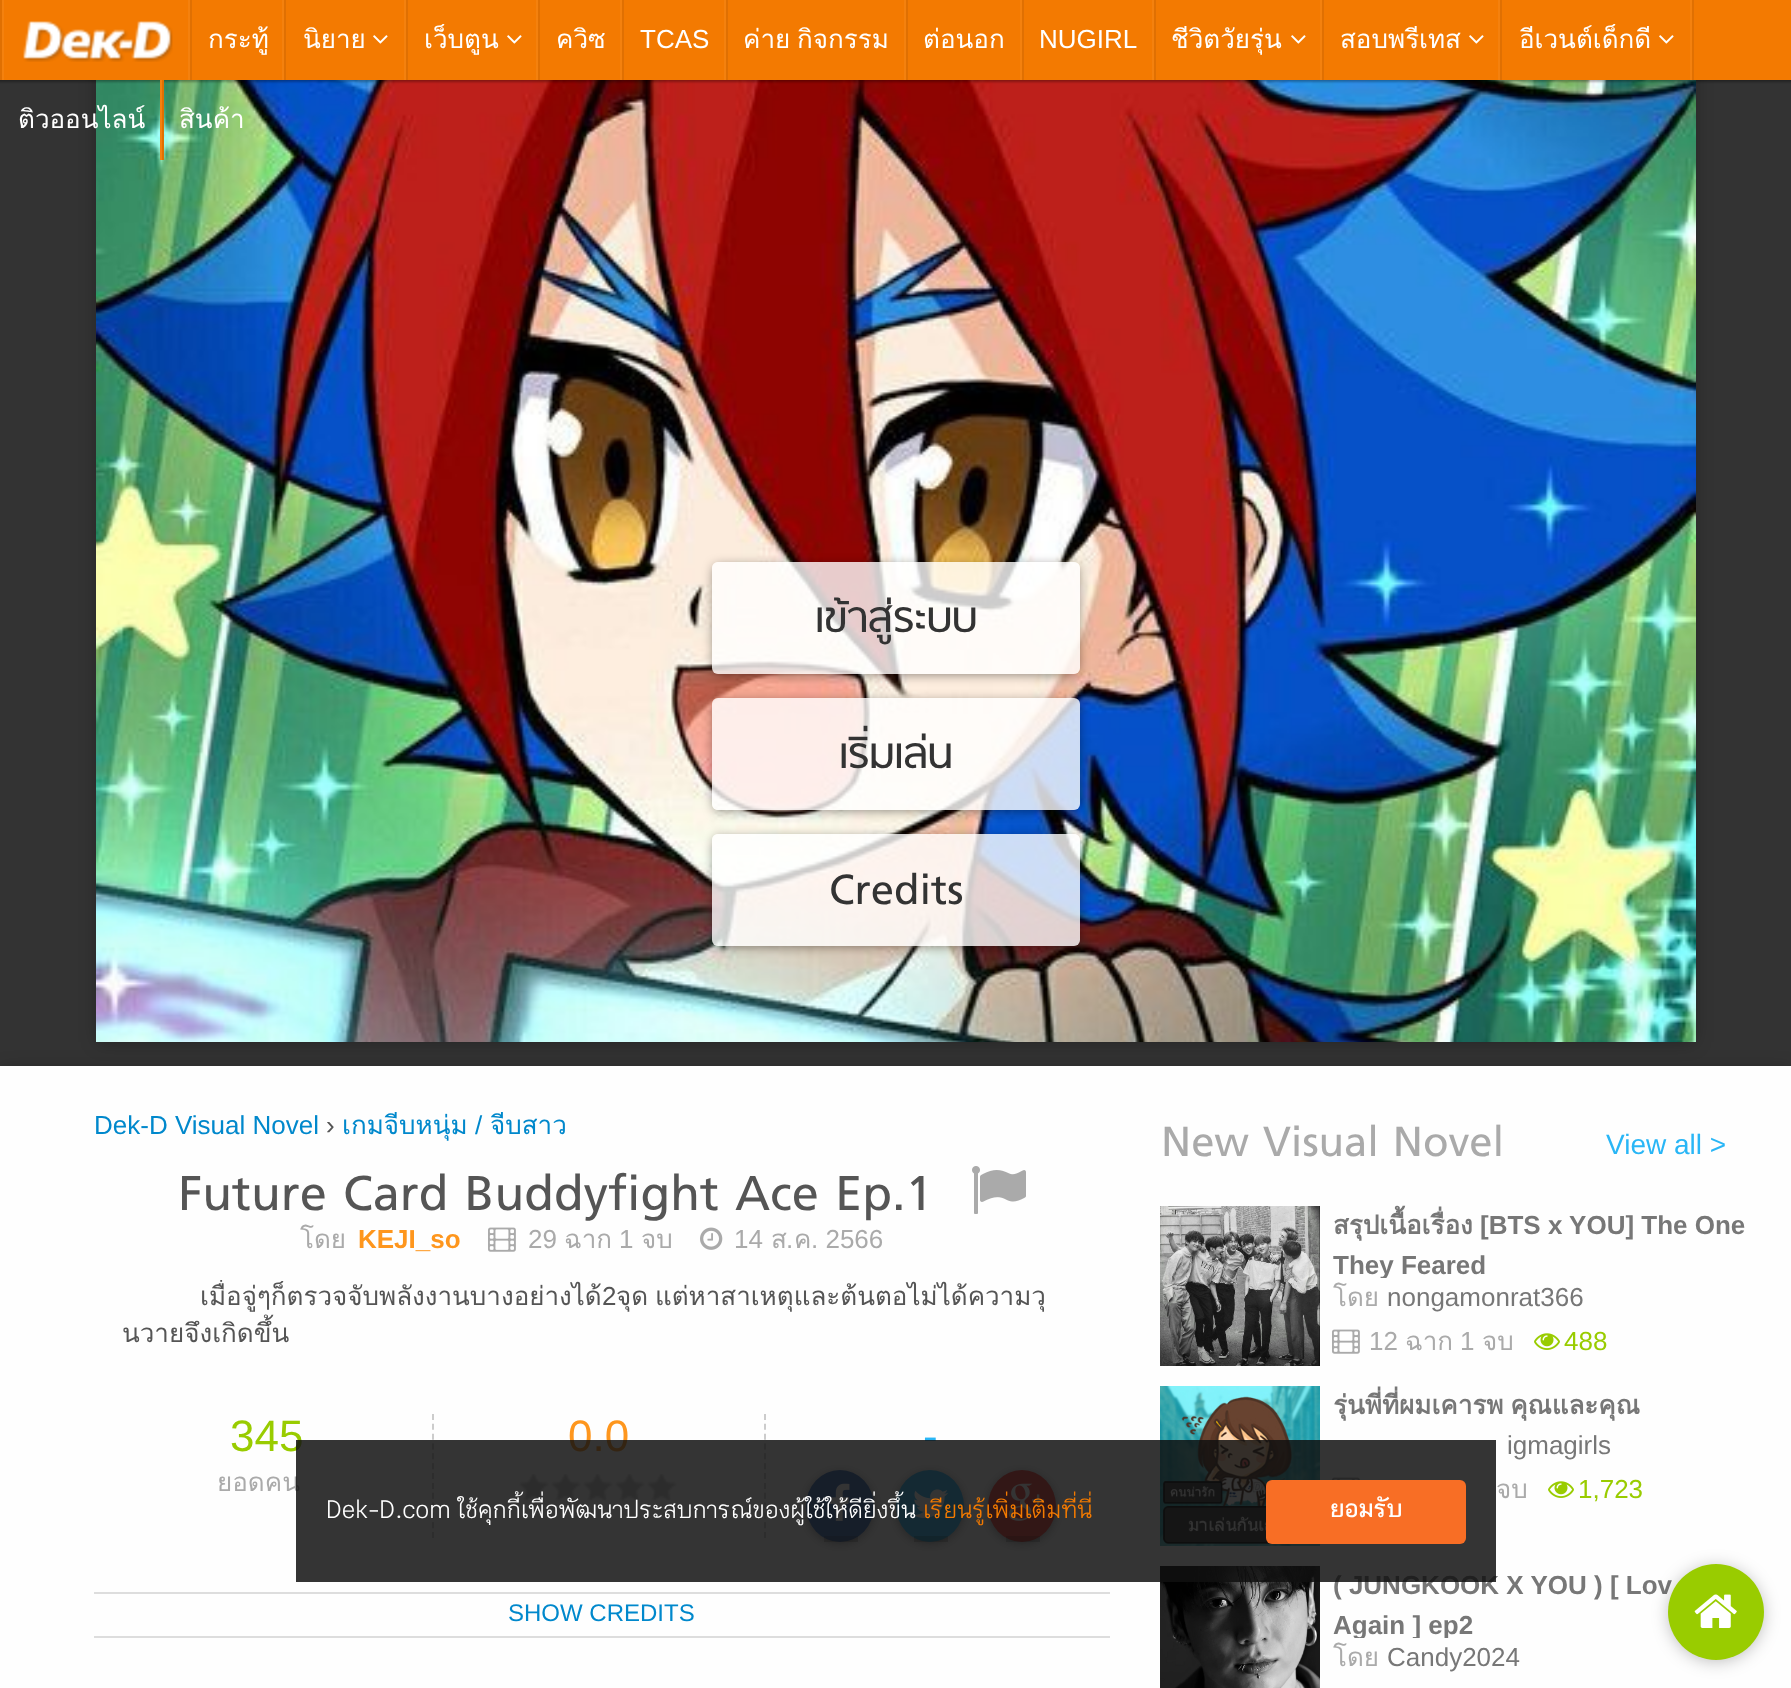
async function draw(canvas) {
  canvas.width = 1791
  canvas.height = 1688
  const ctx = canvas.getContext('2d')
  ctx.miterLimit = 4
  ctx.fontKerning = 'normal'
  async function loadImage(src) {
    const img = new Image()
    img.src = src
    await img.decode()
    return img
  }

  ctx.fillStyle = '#333'
  ctx.fillRect(0, 0, 1791, 1688)
  ctx.fillStyle = '#0000004d'
  ctx.filter = 'blur(9px)'
  ctx.beginPath()
  ctx.rect(98, -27, 1596, 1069)
  ctx.fill()
  ctx.filter = 'none'
  ctx.drawImage(await loadImage('image2.png'), 96, 80, 1600, 962)
  ctx.filter = 'blur(1px)'
  ctx.beginPath()
  ctx.rect(-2, -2, 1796, 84)
  ctx.fill()
  ctx.filter = 'none'
  ctx.fillStyle = '#f37a01'
  ctx.fillRect(4, 0, 1787, 80)
  ctx.fillStyle = '#f4810e'
  ctx.fillRect(2, 0, 2, 80)
  ctx.fillStyle = '#e07002'
  ctx.fillRect(0, 0, 2, 80)
  ctx.fillStyle = '#f4810e'
  ctx.fillRect(188, 0, 2, 80)
  ctx.fillStyle = '#e07002'
  ctx.fillRect(190, 0, 2, 80)
  ctx.drawImage(await loadImage('image0.png'), 23, 21, 150, 41)
  ctx.fillStyle = '#f4810e'
  ctx.fillRect(282, 0, 2, 80)
  ctx.fillStyle = '#e07002'
  ctx.fillRect(284, 0, 2, 80)
  ctx.font = '26px Loma'
  ctx.fillStyle = '#fff'
  ctx.fillText('กระทู้', 208, 48)
  ctx.fillStyle = '#f4810e'
  ctx.fillRect(404, 0, 2, 80)
  ctx.fillStyle = '#e07002'
  ctx.fillRect(406, 0, 2, 80)
  ctx.fillStyle = '#fff'
  ctx.fillText('นิยาย', 303, 48)
  ctx.drawImage(await loadImage('image1.png'), 373, 35, 15, 9)
  ctx.fillStyle = '#f4810e'
  ctx.fillRect(536, 0, 2, 80)
  ctx.fillStyle = '#e07002'
  ctx.fillRect(538, 0, 2, 80)
  ctx.fillStyle = '#fff'
  ctx.fillText('เว็บตูน', 424, 48)
  ctx.drawImage(await loadImage('image1.png'), 507, 35, 15, 9)
  ctx.fillStyle = '#f4810e'
  ctx.fillRect(620, 0, 2, 80)
  ctx.fillStyle = '#e07002'
  ctx.fillRect(622, 0, 2, 80)
  ctx.fillStyle = '#fff'
  ctx.fillText('ควิซ', 556, 48)
  ctx.fillStyle = '#f4810e'
  ctx.fillRect(724, 0, 2, 80)
  ctx.fillStyle = '#e07002'
  ctx.fillRect(726, 0, 2, 80)
  ctx.font = '26px Liberation Sans'
  ctx.fillStyle = '#fff'
  ctx.fillText('TCAS', 640, 48)
  ctx.fillStyle = '#f4810e'
  ctx.fillRect(904, 0, 2, 80)
  ctx.fillStyle = '#e07002'
  ctx.fillRect(906, 0, 2, 80)
  ctx.wordSpacing = '-2px'
  ctx.font = '26px Loma'
  ctx.fillStyle = '#fff'
  ctx.fillText('ค่าย กิจกรรม', 743, 48)
  ctx.fillStyle = '#f4810e'
  ctx.fillRect(1020, 0, 2, 80)
  ctx.fillStyle = '#e07002'
  ctx.fillRect(1022, 0, 2, 80)
  ctx.wordSpacing = '0px'
  ctx.fillStyle = '#fff'
  ctx.fillText('ต่อนอก', 923, 48)
  ctx.fillStyle = '#f4810e'
  ctx.fillRect(1152, 0, 2, 80)
  ctx.fillStyle = '#e07002'
  ctx.fillRect(1154, 0, 2, 80)
  ctx.font = '26px Liberation Sans'
  ctx.fillStyle = '#fff'
  ctx.fillText('NUGIRL', 1039, 48)
  ctx.fillStyle = '#f4810e'
  ctx.fillRect(1320, 0, 2, 80)
  ctx.fillStyle = '#e07002'
  ctx.fillRect(1322, 0, 2, 80)
  ctx.font = '26px Loma'
  ctx.fillStyle = '#fff'
  ctx.fillText('ชีวิตวัยรุ่น', 1171, 48)
  ctx.drawImage(await loadImage('image1.png'), 1291, 35, 15, 9)
  ctx.fillStyle = '#f4810e'
  ctx.fillRect(1498, 0, 2, 80)
  ctx.fillStyle = '#e07002'
  ctx.fillRect(1500, 0, 2, 80)
  ctx.fillStyle = '#fff'
  ctx.fillText('สอบพรีเทส', 1340, 48)
  ctx.drawImage(await loadImage('image1.png'), 1469, 35, 15, 9)
  ctx.fillStyle = '#f4810e'
  ctx.fillRect(1690, 0, 2, 80)
  ctx.fillStyle = '#e07002'
  ctx.fillRect(1692, 0, 2, 80)
  ctx.fillStyle = '#fff'
  ctx.fillText('อีเวนต์เด็กดี', 1519, 48)
  ctx.drawImage(await loadImage('image1.png'), 1659, 35, 15, 9)
  ctx.fillStyle = '#f4810e'
  ctx.fillRect(160, 80, 2, 80)
  ctx.fillStyle = '#e07002'
  ctx.fillRect(162, 80, 2, 80)
  ctx.fillStyle = '#fff'
  ctx.fillText('ติวออนไลน์', 18, 128)
  ctx.fillText('สินค้า', 179, 128)
  ctx.save()
  ctx.beginPath()
  ctx.moveTo(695, 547)
  ctx.lineTo(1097, 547)
  ctx.lineTo(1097, 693)
  ctx.lineTo(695, 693)
  ctx.closePath()
  ctx.moveTo(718, 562)
  ctx.lineTo(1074, 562)
  ctx.bezierCurveTo(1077.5, 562, 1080, 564.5, 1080, 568)
  ctx.lineTo(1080, 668)
  ctx.bezierCurveTo(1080, 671.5, 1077.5, 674, 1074, 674)
  ctx.lineTo(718, 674)
  ctx.bezierCurveTo(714.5, 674, 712, 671.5, 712, 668)
  ctx.lineTo(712, 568)
  ctx.bezierCurveTo(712, 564.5, 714.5, 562, 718, 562)
  ctx.closePath()
  ctx.clip('evenodd')
  ctx.fillStyle = '#00000080'
  ctx.filter = 'blur(6px)'
  ctx.beginPath()
  ctx.roundRect(714, 566, 364, 108, 4)
  ctx.fill()
  ctx.filter = 'none'
  ctx.restore()
  ctx.fillStyle = '#ffffffcc'
  ctx.beginPath()
  ctx.roundRect(712, 562, 368, 112, 6)
  ctx.fill()
  ctx.font = '48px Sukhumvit'
  ctx.fillStyle = '#333'
  ctx.fillText('เข้าสู่ระบบ', 815, 632)
  ctx.save()
  ctx.beginPath()
  ctx.moveTo(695, 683)
  ctx.lineTo(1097, 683)
  ctx.lineTo(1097, 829)
  ctx.lineTo(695, 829)
  ctx.closePath()
  ctx.moveTo(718, 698)
  ctx.lineTo(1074, 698)
  ctx.bezierCurveTo(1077.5, 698, 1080, 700.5, 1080, 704)
  ctx.lineTo(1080, 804)
  ctx.bezierCurveTo(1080, 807.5, 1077.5, 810, 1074, 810)
  ctx.lineTo(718, 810)
  ctx.bezierCurveTo(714.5, 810, 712, 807.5, 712, 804)
  ctx.lineTo(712, 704)
  ctx.bezierCurveTo(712, 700.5, 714.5, 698, 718, 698)
  ctx.closePath()
  ctx.clip('evenodd')
  ctx.fillStyle = '#00000080'
  ctx.filter = 'blur(6px)'
  ctx.beginPath()
  ctx.roundRect(714, 702, 364, 108, 4)
  ctx.fill()
  ctx.filter = 'none'
  ctx.restore()
  ctx.fillStyle = '#ffffffcc'
  ctx.beginPath()
  ctx.roundRect(712, 698, 368, 112, 6)
  ctx.fill()
  ctx.fillStyle = '#333'
  ctx.fillText('เริ่มเล่น', 839, 768)
  ctx.save()
  ctx.beginPath()
  ctx.moveTo(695, 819)
  ctx.lineTo(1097, 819)
  ctx.lineTo(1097, 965)
  ctx.lineTo(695, 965)
  ctx.closePath()
  ctx.moveTo(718, 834)
  ctx.lineTo(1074, 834)
  ctx.bezierCurveTo(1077.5, 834, 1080, 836.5, 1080, 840)
  ctx.lineTo(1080, 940)
  ctx.bezierCurveTo(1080, 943.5, 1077.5, 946, 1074, 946)
  ctx.lineTo(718, 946)
  ctx.bezierCurveTo(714.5, 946, 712, 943.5, 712, 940)
  ctx.lineTo(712, 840)
  ctx.bezierCurveTo(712, 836.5, 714.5, 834, 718, 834)
  ctx.closePath()
  ctx.clip('evenodd')
  ctx.fillStyle = '#00000080'
  ctx.filter = 'blur(6px)'
  ctx.beginPath()
  ctx.roundRect(714, 838, 364, 108, 4)
  ctx.fill()
  ctx.filter = 'none'
  ctx.restore()
  ctx.fillStyle = '#ffffffcc'
  ctx.beginPath()
  ctx.roundRect(712, 834, 368, 112, 6)
  ctx.fill()
  ctx.fillStyle = '#333'
  ctx.fillText('Credits', 829, 904)
  ctx.fillStyle = '#0000004d'
  ctx.filter = 'blur(9px)'
  ctx.beginPath()
  ctx.rect(2, 1070, 1788, 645)
  ctx.fill()
  ctx.filter = 'none'
  ctx.fillStyle = '#fefefe'
  ctx.fillRect(0, 1066, 1791, 622)
  ctx.font = '26px Liberation Sans'
  ctx.fillStyle = '#08c'
  ctx.fillText('Dek-D Visual Novel', 94, 1134)
  ctx.fillStyle = '#555'
  ctx.fillText('›', 326, 1134)
  ctx.font = '26px Loma'
  ctx.fillStyle = '#08c'
  ctx.fillText('เกมจีบหนุ่ม', 342, 1134)
  ctx.font = '26px Liberation Sans'
  ctx.fillText('/', 475, 1134)
  ctx.font = '26px Loma'
  ctx.fillText('จีบสาว', 490, 1134)
  ctx.fillStyle = '#ddd'
  ctx.fillRect(94, 1636, 1016, 2)
  ctx.font = '56px Sukhumvit'
  ctx.fillStyle = '#555'
  ctx.fillText('Future Card Buddyfight Ace Ep.1', 178, 1210)
  ctx.drawImage(await loadImage('image3.png'), 972, 1166, 54, 48)
  ctx.font = '26px Loma'
  ctx.fillStyle = '#aaa'
  ctx.fillText('โดย', 300, 1248)
  ctx.font = 'bold 26px Liberation Sans'
  ctx.fillStyle = '#fe961d'
  ctx.fillText('KEJI_so', 358, 1248)
  ctx.drawImage(await loadImage('image4.png'), 488, 1227, 28, 25)
  ctx.font = '26px Liberation Sans'
  ctx.fillStyle = '#aaa'
  ctx.fillText('29', 528, 1248)
  ctx.font = '26px Loma'
  ctx.fillText('ฉาก', 564, 1248)
  ctx.font = '26px Liberation Sans'
  ctx.fillText('1', 619, 1248)
  ctx.font = '26px Loma'
  ctx.fillText('จบ', 641, 1248)
  ctx.drawImage(await loadImage('image5.png'), 700, 1227, 23, 23)
  ctx.font = '26px Liberation Sans'
  ctx.fillText('14', 734, 1248)
  ctx.font = '26px Loma'
  ctx.fillText('ส', 771, 1248)
  ctx.font = '26px Liberation Sans'
  ctx.fillText('.', 786, 1248)
  ctx.font = '26px Loma'
  ctx.fillText('ค', 794, 1248)
  ctx.font = '26px Liberation Sans'
  ctx.fillText('. 2566', 811, 1248)
  ctx.save()
  ctx.beginPath()
  ctx.rect(94, 1280, 994, 74)
  ctx.clip()
  ctx.font = '26px Loma'
  ctx.fillStyle = '#555'
  ctx.fillText('เมื่อจู่ๆก็ตรวจจับพลังงานบางอย่างได้', 200, 1305)
  ctx.restore()
  ctx.fillStyle = '#555'
  ctx.fillText('2', 602, 1305)
  ctx.wordSpacing = '-2px'
  ctx.font = '26px Loma'
  ctx.fillText('จุด แต่หาสาเหตุและต้นตอไม่ได้ความวุ', 616, 1305)
  ctx.wordSpacing = '0px'
  ctx.fillText('นวายจึงเกิดขึ้น', 122, 1342)
  ctx.font = '44px Liberation Sans'
  ctx.fillStyle = '#9c0'
  ctx.fillText('345', 230, 1451)
  ctx.font = '26px Loma'
  ctx.fillStyle = '#aaa'
  ctx.fillText('ยอดคน', 217, 1491)
  ctx.beginPath()
  ctx.moveTo(765, 1414)
  ctx.lineTo(765, 1538)
  ctx.strokeStyle = '#ccc'
  ctx.lineWidth = 2
  ctx.setLineDash([6, 3.84])
  ctx.stroke()
  ctx.beginPath()
  ctx.moveTo(433, 1414)
  ctx.lineTo(433, 1538)
  ctx.stroke()
  ctx.font = '44px Liberation Sans'
  ctx.fillStyle = '#fe961d'
  ctx.fillText('0.0', 568, 1451)
  ctx.drawImage(await loadImage('image6.png'), 519, 1474, 158, 27)
  ctx.fillStyle = '#29b6f6'
  ctx.fillText('-', 923, 1451)
  ctx.fillStyle = '#00000080'
  ctx.filter = 'blur(6px)'
  ctx.beginPath()
  ctx.roundRect(808, 1474, 64, 68, 32)
  ctx.fill()
  ctx.filter = 'none'
  ctx.fillStyle = '#3b6cb6'
  ctx.beginPath()
  ctx.ellipse(840, 1506, 34, 36, 0, 0, 2 * Math.PI)
  ctx.fill()
  ctx.fillStyle = '#00000033'
  ctx.fillRect(824, 1536, 34, 6)
  ctx.drawImage(await loadImage('image7.png'), 830, 1483, 20, 38)
  ctx.fillStyle = '#00000080'
  ctx.filter = 'blur(6px)'
  ctx.beginPath()
  ctx.roundRect(898, 1474, 64, 68, 32)
  ctx.fill()
  ctx.filter = 'none'
  ctx.fillStyle = '#29b6f6'
  ctx.beginPath()
  ctx.ellipse(930, 1506, 34, 36, 0, 0, 2 * Math.PI)
  ctx.fill()
  ctx.fillStyle = '#00000033'
  ctx.fillRect(914, 1536, 34, 6)
  ctx.drawImage(await loadImage('image8.png'), 913, 1489, 35, 29)
  ctx.fillStyle = '#00000080'
  ctx.filter = 'blur(6px)'
  ctx.beginPath()
  ctx.roundRect(990, 1474, 64, 68, 32)
  ctx.fill()
  ctx.filter = 'none'
  ctx.fillStyle = '#f13d36'
  ctx.beginPath()
  ctx.ellipse(1022, 1506, 34, 36, 0, 0, 2 * Math.PI)
  ctx.fill()
  ctx.fillStyle = '#00000033'
  ctx.fillRect(1006, 1536, 34, 6)
  ctx.drawImage(await loadImage('image9.png'), 1008, 1483, 37, 38)
  ctx.fillStyle = '#ddd'
  ctx.fillRect(94, 1592, 1016, 2)
  ctx.font = '24px Liberation Sans'
  ctx.fillStyle = '#08c'
  ctx.fillText('SHOW CREDITS', 508, 1621)
  ctx.font = '48px Sukhumvit'
  ctx.fillStyle = '#aaa'
  ctx.fillText('New Visual Novel', 1161, 1156)
  ctx.font = '28px Liberation Sans'
  ctx.fillStyle = '#29b6f6'
  ctx.fillText('View all >', 1606, 1154)
  ctx.drawImage(await loadImage('image10.png'), 1160, 1206, 160, 160)
  ctx.font = 'bold 26px Loma'
  ctx.fillStyle = '#777'
  ctx.fillText('สรุปเนื้อเรื่อง', 1333, 1234)
  ctx.font = 'bold 26px Liberation Sans'
  ctx.fillText('[BTS x YOU] The One', 1480, 1234)
  ctx.save()
  ctx.beginPath()
  ctx.rect(1332, 1206, 414, 72)
  ctx.clip()
  ctx.fillText('They Feared', 1333, 1274)
  ctx.restore()
  ctx.font = '26px Loma'
  ctx.fillStyle = '#aaa'
  ctx.fillText('โดย', 1333, 1306)
  ctx.font = '26px Liberation Sans'
  ctx.fillStyle = '#777'
  ctx.fillText('nongamonrat366', 1387, 1306)
  ctx.drawImage(await loadImage('image4.png'), 1332, 1329, 28, 25)
  ctx.fillStyle = '#aaa'
  ctx.fillText('12', 1369, 1350)
  ctx.font = '26px Loma'
  ctx.fillText('ฉาก', 1405, 1350)
  ctx.font = '26px Liberation Sans'
  ctx.fillText('1', 1460, 1350)
  ctx.font = '26px Loma'
  ctx.fillText('จบ', 1482, 1350)
  ctx.drawImage(await loadImage('image11.png'), 1534, 1333, 26, 17)
  ctx.font = '26px Liberation Sans'
  ctx.fillStyle = '#9c0'
  ctx.fillText('488', 1564, 1350)
  ctx.drawImage(await loadImage('image12.png'), 1160, 1386, 160, 160)
  ctx.save()
  ctx.beginPath()
  ctx.rect(1332, 1386, 414, 40)
  ctx.clip()
  ctx.wordSpacing = '-2px'
  ctx.font = 'bold 26px Loma'
  ctx.fillStyle = '#777'
  ctx.fillText('รุ่นพี่ที่ผมเคารพ คุณและคุณ', 1333, 1414)
  ctx.restore()
  ctx.fillStyle = '#777'
  ctx.fillText('igmagirls', 1507, 1454)
  ctx.drawImage(await loadImage('image13.png'), 1332, 1477, 28, 3)
  ctx.font = '26px Loma'
  ctx.fillStyle = '#aaa'
  ctx.fillText('จบ', 1496, 1498)
  ctx.drawImage(await loadImage('image11.png'), 1548, 1481, 26, 17)
  ctx.font = '26px Liberation Sans'
  ctx.fillStyle = '#9c0'
  ctx.fillText('1,723', 1578, 1498)
  ctx.drawImage(await loadImage('image14.png'), 1160, 1566, 160, 122)
  ctx.font = 'bold 26px Liberation Sans'
  ctx.fillStyle = '#777'
  ctx.fillText('( JUNGKOOK X YOU ) [ Lov', 1333, 1594)
  ctx.save()
  ctx.beginPath()
  ctx.rect(1332, 1566, 414, 72)
  ctx.clip()
  ctx.fillText('Again ] ep2', 1333, 1634)
  ctx.restore()
  ctx.font = '26px Loma'
  ctx.fillStyle = '#aaa'
  ctx.fillText('โดย', 1333, 1666)
  ctx.font = '26px Liberation Sans'
  ctx.fillStyle = '#777'
  ctx.fillText('Candy2024', 1387, 1666)
  ctx.fillStyle = '#0000004d'
  ctx.filter = 'blur(9px)'
  ctx.beginPath()
  ctx.roundRect(1670, 1568, 92, 92, 46)
  ctx.fill()
  ctx.filter = 'none'
  ctx.fillStyle = '#9c0'
  ctx.beginPath()
  ctx.arc(1716, 1612, 48, 0, 2 * Math.PI)
  ctx.fill()
  ctx.drawImage(await loadImage('image15.png'), 1694, 1594, 43, 34)
  ctx.fillStyle = '#101010d9'
  ctx.fillRect(296, 1440, 1200, 142)
  ctx.font = '28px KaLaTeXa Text'
  ctx.fillStyle = '#fff'
  ctx.fillText('Dek-D.com ใช้คุกกี้เพื่อพัฒนาประสบการณ์ของผู้ใช้ให้ดียิ่งขึ้น', 326, 1518)
  ctx.fillStyle = '#f37a01'
  ctx.fillText('เรียนรู้เพิ่มเติมที่นี่', 923, 1518)
  ctx.fillStyle = '#f86e25'
  ctx.beginPath()
  ctx.roundRect(1266, 1480, 200, 64, 6)
  ctx.fill()
  ctx.font = 'bold 28px KaLaTeXa Text'
  ctx.fillStyle = '#fff'
  ctx.fillText('ยอมรับ', 1330, 1517)
}

draw(document.querySelector('canvas'))
